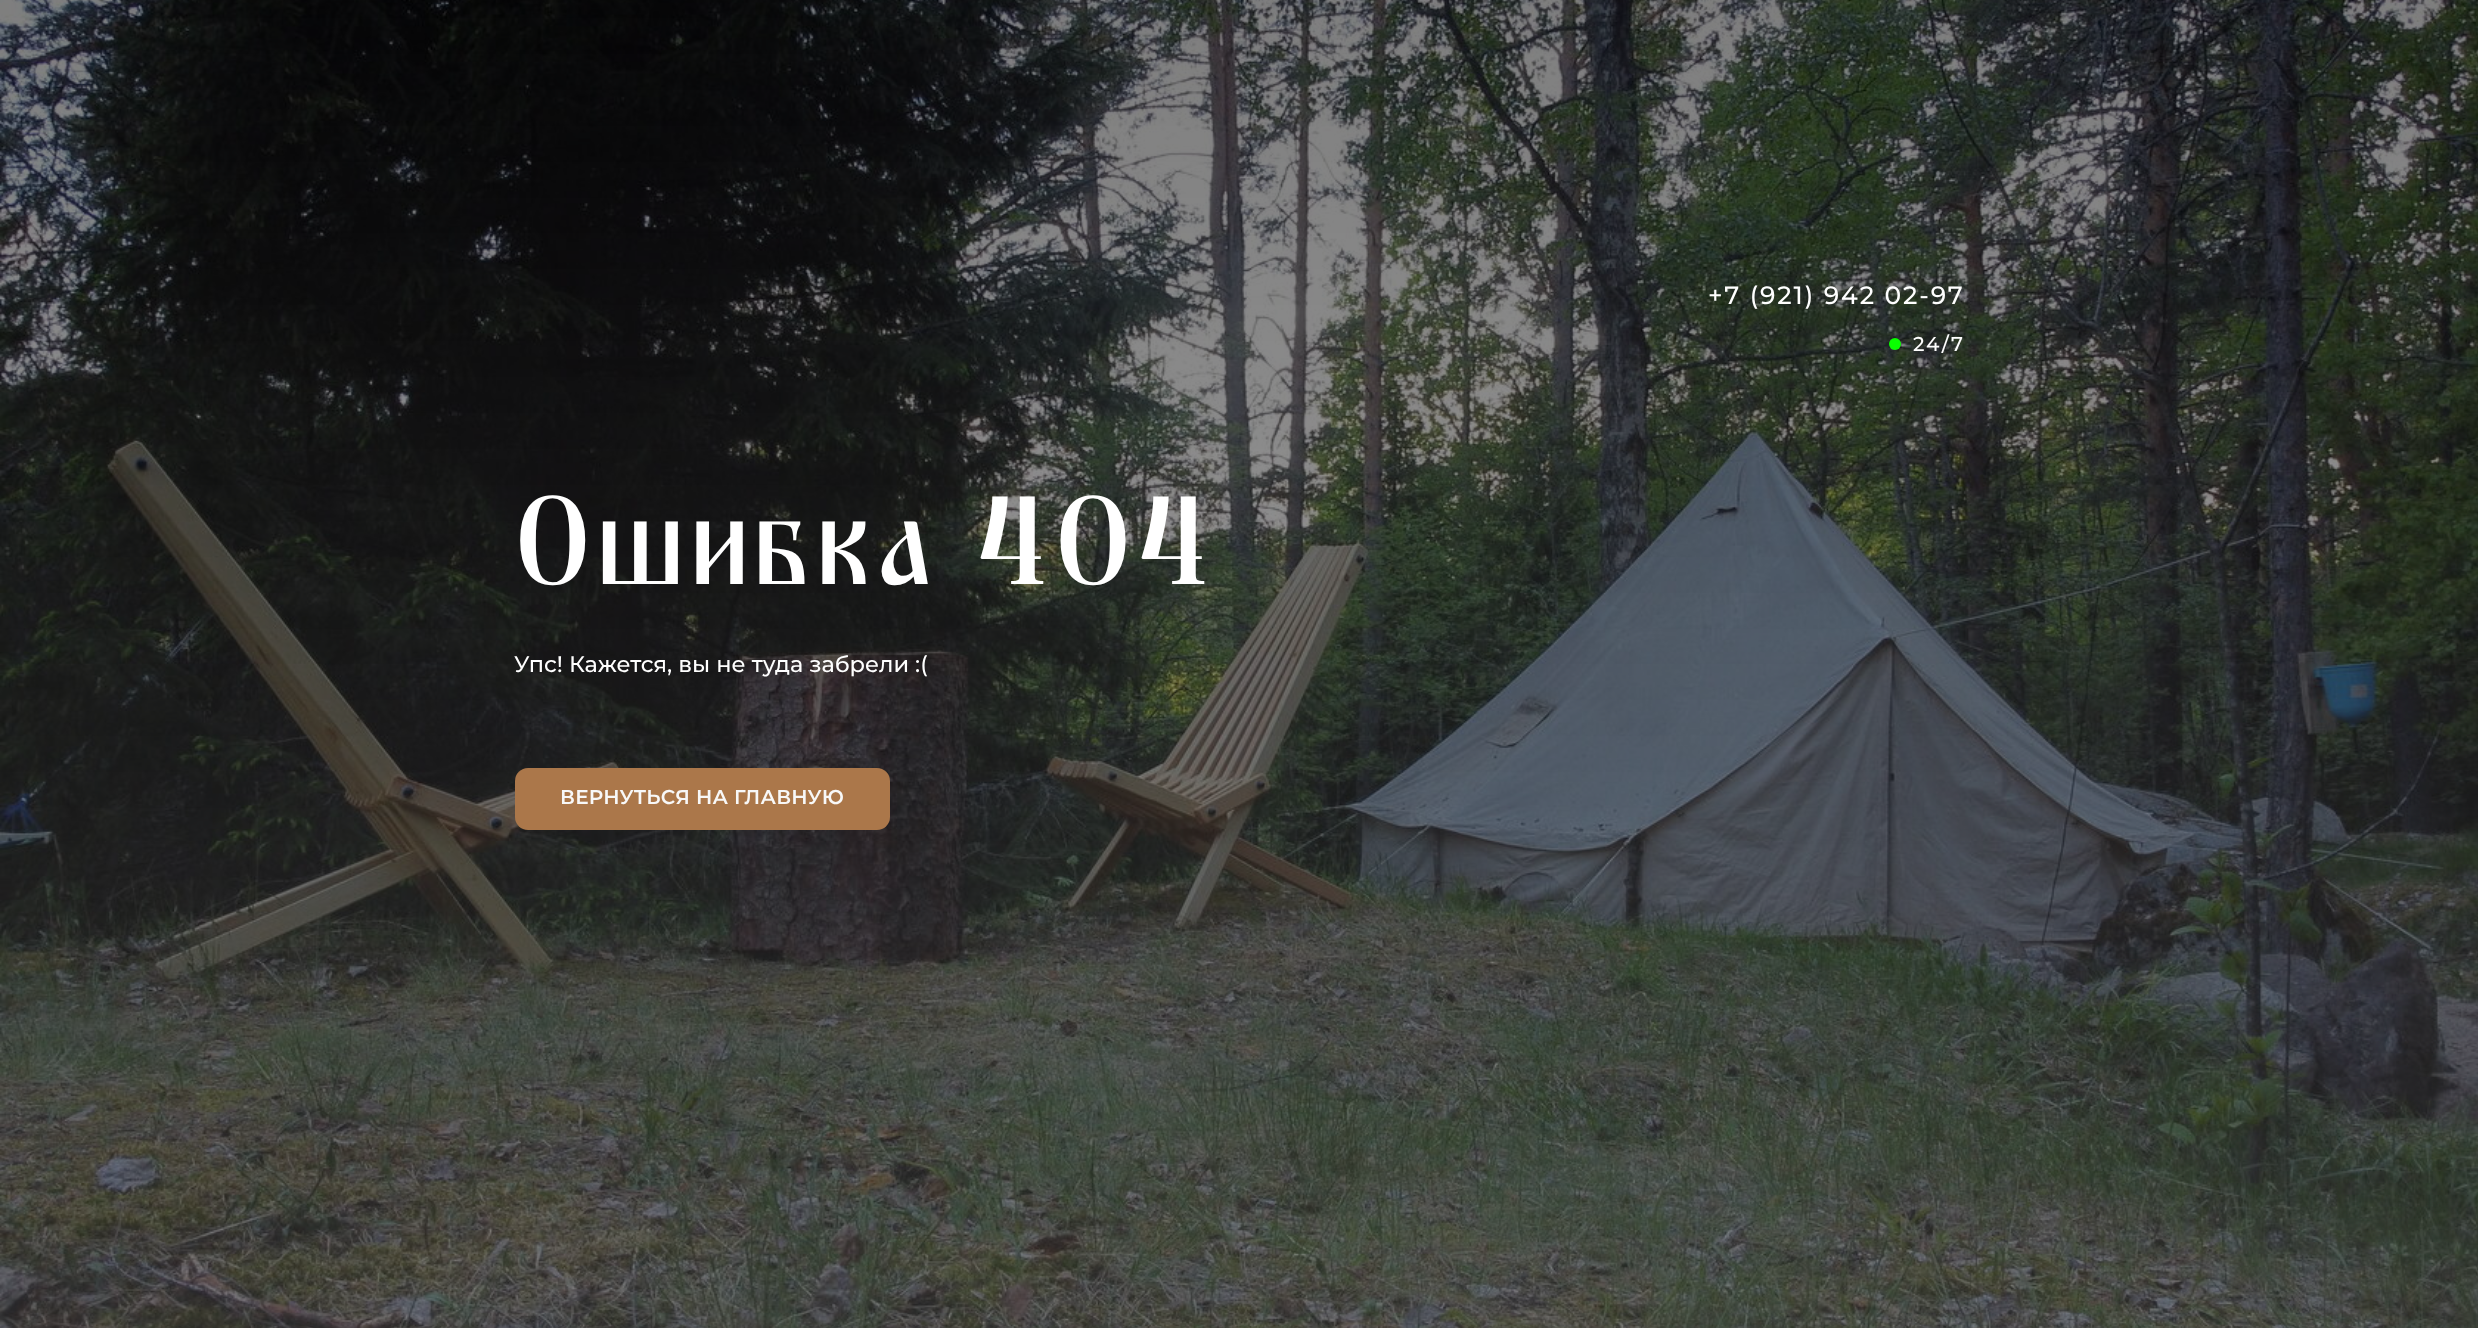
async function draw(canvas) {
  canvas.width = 2478
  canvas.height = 1328
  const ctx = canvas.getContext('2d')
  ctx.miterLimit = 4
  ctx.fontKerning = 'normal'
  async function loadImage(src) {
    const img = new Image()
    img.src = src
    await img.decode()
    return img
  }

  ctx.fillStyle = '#fff'
  ctx.fillRect(0, 0, 2478, 1328)
  ctx.drawImage(await loadImage('image0.png'), 0, 0, 2478, 1328)
  ctx.letterSpacing = '1.9px'
  ctx.font = '500 25px Montserrat'
  ctx.fillText('+7 (921) 942 02-97', 1708, 304)
  ctx.fillStyle = '#09ff00'
  ctx.beginPath()
  ctx.arc(1895, 344, 6, 0, 2 * Math.PI)
  ctx.fill()
  ctx.font = '500 20px Montserrat'
  ctx.fillStyle = '#fff'
  ctx.fillText('24/7', 1913, 351)
  ctx.font = '500 125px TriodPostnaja'
  ctx.fillText('Ошибка 404', 514, 584)
  ctx.letterSpacing = '0px'
  ctx.font = '500 22.5px Montserrat'
  ctx.fillText('Упс! Кажется, вы не туда забрели :(', 514, 672)
  ctx.fillStyle = '#ab774a'
  ctx.beginPath()
  ctx.roundRect(515, 768, 375, 62, 13)
  ctx.fill()
  ctx.letterSpacing = '0.25px'
  ctx.font = '600 20px Montserrat'
  ctx.fillStyle = '#f8f8f8'
  ctx.fillText('ВЕРНУТЬСЯ НА ГЛАВНУЮ', 560, 804)
}

draw(document.querySelector('canvas'))
